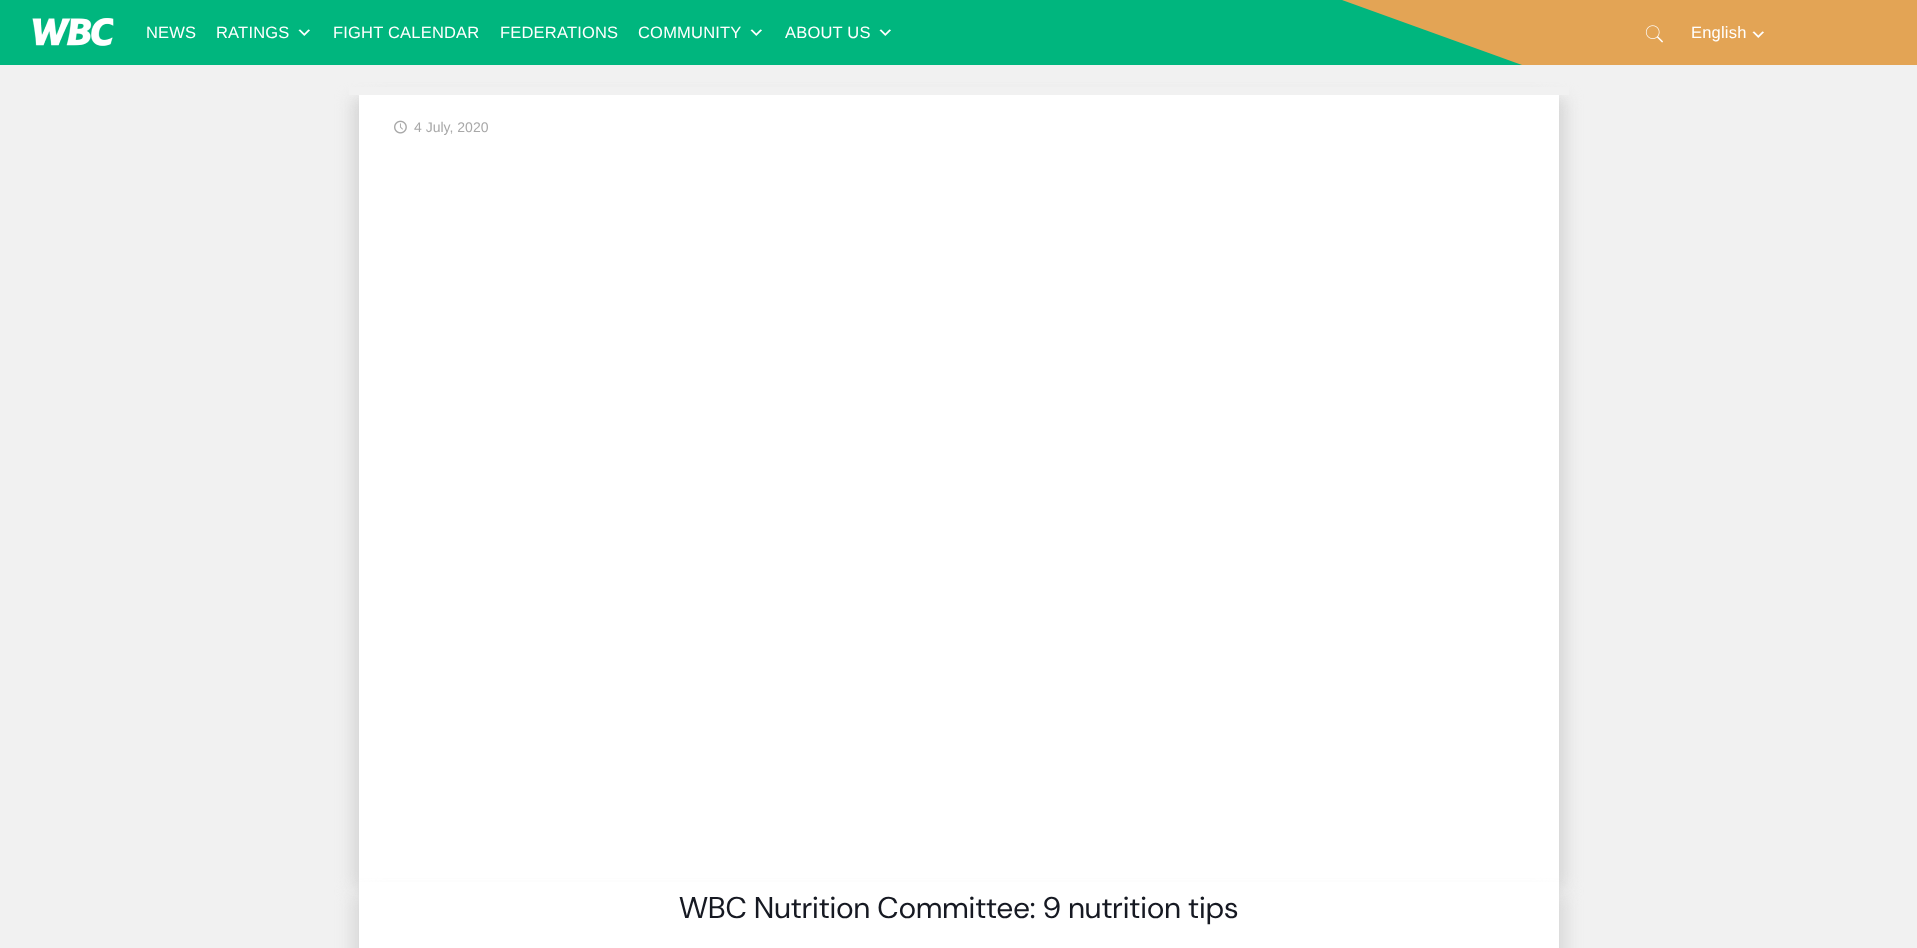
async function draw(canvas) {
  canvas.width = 1917
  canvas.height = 948
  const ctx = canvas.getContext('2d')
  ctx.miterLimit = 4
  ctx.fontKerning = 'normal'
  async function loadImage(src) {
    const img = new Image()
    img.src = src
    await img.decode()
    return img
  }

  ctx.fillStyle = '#f1f1f1'
  ctx.fillRect(0, 0, 1917, 948)
  ctx.fillStyle = '#dadada'
  ctx.filter = 'blur(7.5px)'
  ctx.beginPath()
  ctx.rect(351, 99, 1192, 788)
  ctx.fill()
  ctx.filter = 'none'
  ctx.filter = 'blur(7.5px)'
  ctx.beginPath()
  ctx.rect(375, 99, 1192, 788)
  ctx.fill()
  ctx.filter = 'none'
  ctx.filter = 'blur(5px)'
  ctx.beginPath()
  ctx.rect(359, 101, 1200, 796)
  ctx.fill()
  ctx.filter = 'none'
  ctx.fillStyle = '#f1f1f1'
  ctx.fillRect(349, 87, 1220, 8)
  ctx.fillStyle = '#00b67e'
  ctx.fillRect(0, 0, 1522, 65)
  ctx.fillStyle = '#e3a455'
  ctx.beginPath()
  ctx.moveTo(1342, 0)
  ctx.lineTo(1917, 0)
  ctx.lineTo(1917, 65)
  ctx.lineTo(1522, 65)
  ctx.closePath()
  ctx.fill()
  ctx.drawImage(await loadImage('image0.png'), 32, 18, 82, 28)
  ctx.letterSpacing = '0.2px'
  ctx.font = '16.5px Liberation Sans'
  ctx.fillStyle = '#fff'
  ctx.fillText('NEWS', 146, 38)
  ctx.fillText('RATINGS', 216, 38)
  ctx.drawImage(await loadImage('image1.png'), 298, 29, 12, 7)
  ctx.fillText('FIGHT CALENDAR', 333, 38)
  ctx.fillText('FEDERATIONS', 500, 38)
  ctx.fillText('COMMUNITY', 638, 38)
  ctx.drawImage(await loadImage('image1.png'), 750, 29, 12, 7)
  ctx.fillText('ABOUT US', 785, 38)
  ctx.drawImage(await loadImage('image1.png'), 879, 29, 12, 7)
  ctx.drawImage(await loadImage('image2.png'), 1645, 25, 18, 18)
  ctx.fillText('English', 1691, 38)
  ctx.drawImage(await loadImage('image3.png'), 1752, 31, 12, 7)
  ctx.fillRect(359, 95, 1200, 787)
  ctx.drawImage(await loadImage('image4.png'), 394, 120, 13, 14)
  ctx.letterSpacing = '0px'
  ctx.font = '14px Liberation Sans'
  ctx.fillStyle = '#a8a8a8'
  ctx.fillText('4 July, 2020', 414, 132)
  ctx.fillStyle = '#dadada'
  ctx.filter = 'blur(7.5px)'
  ctx.beginPath()
  ctx.rect(351, 895, 1192, 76)
  ctx.fill()
  ctx.filter = 'none'
  ctx.filter = 'blur(7.5px)'
  ctx.beginPath()
  ctx.rect(375, 895, 1192, 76)
  ctx.fill()
  ctx.filter = 'none'
  ctx.fillStyle = '#fff'
  ctx.fillRect(359, 882, 1200, 66)
  ctx.font = '30px DM Sans'
  ctx.fillStyle = '#161922'
  ctx.fillText('WBC Nutrition Committee: 9 nutrition tips', 679, 918)
}

draw(document.querySelector('canvas'))
